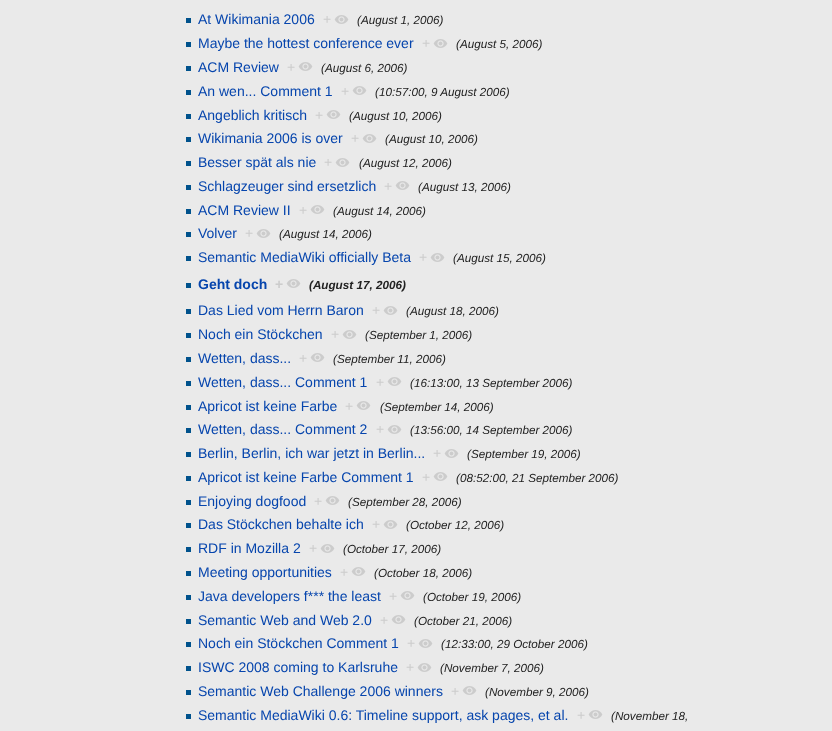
async function draw(canvas) {
  canvas.width = 832
  canvas.height = 731
  const ctx = canvas.getContext('2d')
  ctx.miterLimit = 4
  ctx.fontKerning = 'normal'
  async function loadImage(src) {
    const img = new Image()
    img.src = src
    await img.decode()
    return img
  }

  ctx.fillStyle = '#eaeaea'
  ctx.fillRect(0, 0, 832, 731)
  ctx.fillStyle = '#00528c'
  ctx.fillRect(186, 18, 5, 5)
  ctx.font = '14px Liberation Sans'
  ctx.fillStyle = '#0645ad'
  ctx.fillText('At Wikimania 2006', 198, 24)
  ctx.fillStyle = '#ccc'
  ctx.fillText('+', 323, 24)
  ctx.drawImage(await loadImage('image0.png'), 334, 15, 15, 9)
  ctx.font = 'italic 11.7px Liberation Sans'
  ctx.fillStyle = '#222'
  ctx.fillText('(August 1, 2006)', 357, 24)
  ctx.fillStyle = '#00528c'
  ctx.fillRect(186, 42, 5, 5)
  ctx.font = '14px Liberation Sans'
  ctx.fillStyle = '#0645ad'
  ctx.fillText('Maybe the hottest conference ever', 198, 48)
  ctx.fillStyle = '#ccc'
  ctx.fillText('+', 422, 48)
  ctx.drawImage(await loadImage('image0.png'), 433, 39, 15, 9)
  ctx.font = 'italic 11.7px Liberation Sans'
  ctx.fillStyle = '#222'
  ctx.fillText('(August 5, 2006)', 456, 48)
  ctx.fillStyle = '#00528c'
  ctx.fillRect(186, 66, 5, 5)
  ctx.font = '14px Liberation Sans'
  ctx.fillStyle = '#0645ad'
  ctx.fillText('ACM Review', 198, 72)
  ctx.fillStyle = '#ccc'
  ctx.fillText('+', 287, 72)
  ctx.drawImage(await loadImage('image0.png'), 298, 62, 15, 9)
  ctx.font = 'italic 11.7px Liberation Sans'
  ctx.fillStyle = '#222'
  ctx.fillText('(August 6, 2006)', 321, 72)
  ctx.fillStyle = '#00528c'
  ctx.fillRect(186, 90, 5, 5)
  ctx.font = '14px Liberation Sans'
  ctx.fillStyle = '#0645ad'
  ctx.fillText('An wen... Comment 1', 198, 96)
  ctx.fillStyle = '#ccc'
  ctx.fillText('+', 341, 96)
  ctx.drawImage(await loadImage('image0.png'), 352, 86, 15, 9)
  ctx.font = 'italic 11.7px Liberation Sans'
  ctx.fillStyle = '#222'
  ctx.fillText('(10:57:00, 9 August 2006)', 375, 96)
  ctx.fillStyle = '#00528c'
  ctx.fillRect(186, 114, 5, 5)
  ctx.font = '14px Liberation Sans'
  ctx.fillStyle = '#0645ad'
  ctx.fillText('Angeblich kritisch', 198, 120)
  ctx.fillStyle = '#ccc'
  ctx.fillText('+', 315, 120)
  ctx.drawImage(await loadImage('image0.png'), 326, 110, 15, 9)
  ctx.font = 'italic 11.7px Liberation Sans'
  ctx.fillStyle = '#222'
  ctx.fillText('(August 10, 2006)', 349, 120)
  ctx.fillStyle = '#00528c'
  ctx.fillRect(186, 137, 5, 5)
  ctx.font = '14px Liberation Sans'
  ctx.fillStyle = '#0645ad'
  ctx.fillText('Wikimania 2006 is over', 198, 143)
  ctx.fillStyle = '#ccc'
  ctx.fillText('+', 351, 143)
  ctx.drawImage(await loadImage('image0.png'), 362, 134, 15, 9)
  ctx.font = 'italic 11.7px Liberation Sans'
  ctx.fillStyle = '#222'
  ctx.fillText('(August 10, 2006)', 385, 143)
  ctx.fillStyle = '#00528c'
  ctx.fillRect(186, 161, 5, 5)
  ctx.font = '14px Liberation Sans'
  ctx.fillStyle = '#0645ad'
  ctx.fillText('Besser spät als nie', 198, 167)
  ctx.fillStyle = '#ccc'
  ctx.fillText('+', 324, 167)
  ctx.drawImage(await loadImage('image0.png'), 335, 158, 15, 9)
  ctx.font = 'italic 11.7px Liberation Sans'
  ctx.fillStyle = '#222'
  ctx.fillText('(August 12, 2006)', 359, 167)
  ctx.fillStyle = '#00528c'
  ctx.fillRect(186, 185, 5, 5)
  ctx.font = '14px Liberation Sans'
  ctx.fillStyle = '#0645ad'
  ctx.fillText('Schlagzeuger sind ersetzlich', 198, 191)
  ctx.fillStyle = '#ccc'
  ctx.fillText('+', 384, 191)
  ctx.drawImage(await loadImage('image0.png'), 395, 181, 15, 9)
  ctx.font = 'italic 11.7px Liberation Sans'
  ctx.fillStyle = '#222'
  ctx.fillText('(August 13, 2006)', 418, 191)
  ctx.fillStyle = '#00528c'
  ctx.fillRect(186, 209, 5, 5)
  ctx.font = '14px Liberation Sans'
  ctx.fillStyle = '#0645ad'
  ctx.fillText('ACM Review II', 198, 215)
  ctx.fillStyle = '#ccc'
  ctx.fillText('+', 299, 215)
  ctx.drawImage(await loadImage('image0.png'), 310, 205, 15, 9)
  ctx.font = 'italic 11.7px Liberation Sans'
  ctx.fillStyle = '#222'
  ctx.fillText('(August 14, 2006)', 333, 215)
  ctx.fillStyle = '#00528c'
  ctx.fillRect(186, 232, 5, 5)
  ctx.font = '14px Liberation Sans'
  ctx.fillStyle = '#0645ad'
  ctx.fillText('Volver', 198, 238)
  ctx.fillStyle = '#ccc'
  ctx.fillText('+', 245, 238)
  ctx.drawImage(await loadImage('image0.png'), 256, 229, 15, 9)
  ctx.font = 'italic 11.7px Liberation Sans'
  ctx.fillStyle = '#222'
  ctx.fillText('(August 14, 2006)', 279, 238)
  ctx.fillStyle = '#00528c'
  ctx.fillRect(186, 256, 5, 5)
  ctx.font = '14px Liberation Sans'
  ctx.fillStyle = '#0645ad'
  ctx.fillText('Semantic MediaWiki officially Beta', 198, 262)
  ctx.fillStyle = '#ccc'
  ctx.fillText('+', 419, 262)
  ctx.drawImage(await loadImage('image0.png'), 430, 253, 15, 9)
  ctx.font = 'italic 11.7px Liberation Sans'
  ctx.fillStyle = '#222'
  ctx.fillText('(August 15, 2006)', 453, 262)
  ctx.fillStyle = '#00528c'
  ctx.fillRect(186, 283, 5, 5)
  ctx.font = 'bold 14px Liberation Sans'
  ctx.fillStyle = '#0645ad'
  ctx.fillText('Geht doch', 198, 289)
  ctx.fillStyle = '#ccc'
  ctx.fillText('+', 275, 289)
  ctx.drawImage(await loadImage('image0.png'), 286, 279, 15, 9)
  ctx.font = 'italic bold 11.7px Liberation Sans'
  ctx.fillStyle = '#222'
  ctx.fillText('(August 17, 2006)', 309, 289)
  ctx.fillStyle = '#00528c'
  ctx.fillRect(186, 309, 5, 5)
  ctx.font = '14px Liberation Sans'
  ctx.fillStyle = '#0645ad'
  ctx.fillText('Das Lied vom Herrn Baron', 198, 315)
  ctx.fillStyle = '#ccc'
  ctx.fillText('+', 372, 315)
  ctx.drawImage(await loadImage('image0.png'), 383, 306, 15, 9)
  ctx.font = 'italic 11.7px Liberation Sans'
  ctx.fillStyle = '#222'
  ctx.fillText('(August 18, 2006)', 406, 315)
  ctx.fillStyle = '#00528c'
  ctx.fillRect(186, 333, 5, 5)
  ctx.font = '14px Liberation Sans'
  ctx.fillStyle = '#0645ad'
  ctx.fillText('Noch ein Stöckchen', 198, 339)
  ctx.fillStyle = '#ccc'
  ctx.fillText('+', 331, 339)
  ctx.drawImage(await loadImage('image0.png'), 342, 330, 15, 9)
  ctx.font = 'italic 11.7px Liberation Sans'
  ctx.fillStyle = '#222'
  ctx.fillText('(September 1, 2006)', 365, 339)
  ctx.fillStyle = '#00528c'
  ctx.fillRect(186, 357, 5, 5)
  ctx.font = '14px Liberation Sans'
  ctx.fillStyle = '#0645ad'
  ctx.fillText('Wetten, dass...', 198, 363)
  ctx.fillStyle = '#ccc'
  ctx.fillText('+', 299, 363)
  ctx.drawImage(await loadImage('image0.png'), 310, 353, 15, 9)
  ctx.font = 'italic 11.7px Liberation Sans'
  ctx.fillStyle = '#222'
  ctx.fillText('(September 11, 2006)', 333, 363)
  ctx.fillStyle = '#00528c'
  ctx.fillRect(186, 381, 5, 5)
  ctx.font = '14px Liberation Sans'
  ctx.fillStyle = '#0645ad'
  ctx.fillText('Wetten, dass... Comment 1', 198, 387)
  ctx.fillStyle = '#ccc'
  ctx.fillText('+', 376, 387)
  ctx.drawImage(await loadImage('image0.png'), 387, 377, 15, 9)
  ctx.font = 'italic 11.7px Liberation Sans'
  ctx.fillStyle = '#222'
  ctx.fillText('(16:13:00, 13 September 2006)', 410, 387)
  ctx.fillStyle = '#00528c'
  ctx.fillRect(186, 405, 5, 5)
  ctx.font = '14px Liberation Sans'
  ctx.fillStyle = '#0645ad'
  ctx.fillText('Apricot ist keine Farbe', 198, 411)
  ctx.fillStyle = '#ccc'
  ctx.fillText('+', 345, 411)
  ctx.drawImage(await loadImage('image0.png'), 356, 401, 15, 9)
  ctx.font = 'italic 11.7px Liberation Sans'
  ctx.fillStyle = '#222'
  ctx.fillText('(September 14, 2006)', 380, 411)
  ctx.fillStyle = '#00528c'
  ctx.fillRect(186, 428, 5, 5)
  ctx.font = '14px Liberation Sans'
  ctx.fillStyle = '#0645ad'
  ctx.fillText('Wetten, dass... Comment 2', 198, 434)
  ctx.fillStyle = '#ccc'
  ctx.fillText('+', 376, 434)
  ctx.drawImage(await loadImage('image0.png'), 387, 425, 15, 9)
  ctx.font = 'italic 11.7px Liberation Sans'
  ctx.fillStyle = '#222'
  ctx.fillText('(13:56:00, 14 September 2006)', 410, 434)
  ctx.fillStyle = '#00528c'
  ctx.fillRect(186, 452, 5, 5)
  ctx.font = '14px Liberation Sans'
  ctx.fillStyle = '#0645ad'
  ctx.fillText('Berlin, Berlin, ich war jetzt in Berlin...', 198, 458)
  ctx.fillStyle = '#ccc'
  ctx.fillText('+', 433, 458)
  ctx.drawImage(await loadImage('image0.png'), 444, 449, 15, 9)
  ctx.font = 'italic 11.7px Liberation Sans'
  ctx.fillStyle = '#222'
  ctx.fillText('(September 19, 2006)', 467, 458)
  ctx.fillStyle = '#00528c'
  ctx.fillRect(186, 476, 5, 5)
  ctx.font = '14px Liberation Sans'
  ctx.fillStyle = '#0645ad'
  ctx.fillText('Apricot ist keine Farbe Comment 1', 198, 482)
  ctx.fillStyle = '#ccc'
  ctx.fillText('+', 422, 482)
  ctx.drawImage(await loadImage('image0.png'), 433, 472, 15, 9)
  ctx.font = 'italic 11.7px Liberation Sans'
  ctx.fillStyle = '#222'
  ctx.fillText('(08:52:00, 21 September 2006)', 456, 482)
  ctx.fillStyle = '#00528c'
  ctx.fillRect(186, 500, 5, 5)
  ctx.font = '14px Liberation Sans'
  ctx.fillStyle = '#0645ad'
  ctx.fillText('Enjoying dogfood', 198, 506)
  ctx.fillStyle = '#ccc'
  ctx.fillText('+', 314, 506)
  ctx.drawImage(await loadImage('image0.png'), 325, 496, 15, 9)
  ctx.font = 'italic 11.7px Liberation Sans'
  ctx.fillStyle = '#222'
  ctx.fillText('(September 28, 2006)', 348, 506)
  ctx.fillStyle = '#00528c'
  ctx.fillRect(186, 523, 5, 5)
  ctx.font = '14px Liberation Sans'
  ctx.fillStyle = '#0645ad'
  ctx.fillText('Das Stöckchen behalte ich', 198, 529)
  ctx.fillStyle = '#ccc'
  ctx.fillText('+', 372, 529)
  ctx.drawImage(await loadImage('image0.png'), 383, 520, 15, 9)
  ctx.font = 'italic 11.7px Liberation Sans'
  ctx.fillStyle = '#222'
  ctx.fillText('(October 12, 2006)', 406, 529)
  ctx.fillStyle = '#00528c'
  ctx.fillRect(186, 547, 5, 5)
  ctx.font = '14px Liberation Sans'
  ctx.fillStyle = '#0645ad'
  ctx.fillText('RDF in Mozilla 2', 198, 553)
  ctx.fillStyle = '#ccc'
  ctx.fillText('+', 309, 553)
  ctx.drawImage(await loadImage('image0.png'), 320, 544, 15, 9)
  ctx.font = 'italic 11.7px Liberation Sans'
  ctx.fillStyle = '#222'
  ctx.fillText('(October 17, 2006)', 343, 553)
  ctx.fillStyle = '#00528c'
  ctx.fillRect(186, 571, 5, 5)
  ctx.font = '14px Liberation Sans'
  ctx.fillStyle = '#0645ad'
  ctx.fillText('Meeting opportunities', 198, 577)
  ctx.fillStyle = '#ccc'
  ctx.fillText('+', 340, 577)
  ctx.drawImage(await loadImage('image0.png'), 351, 567, 15, 9)
  ctx.font = 'italic 11.7px Liberation Sans'
  ctx.fillStyle = '#222'
  ctx.fillText('(October 18, 2006)', 374, 577)
  ctx.fillStyle = '#00528c'
  ctx.fillRect(186, 595, 5, 5)
  ctx.font = '14px Liberation Sans'
  ctx.fillStyle = '#0645ad'
  ctx.fillText('Java developers f*** the least', 198, 601)
  ctx.fillStyle = '#ccc'
  ctx.fillText('+', 389, 601)
  ctx.drawImage(await loadImage('image0.png'), 400, 591, 15, 9)
  ctx.font = 'italic 11.7px Liberation Sans'
  ctx.fillStyle = '#222'
  ctx.fillText('(October 19, 2006)', 423, 601)
  ctx.fillStyle = '#00528c'
  ctx.fillRect(186, 619, 5, 5)
  ctx.font = '14px Liberation Sans'
  ctx.fillStyle = '#0645ad'
  ctx.fillText('Semantic Web and Web 2.0', 198, 625)
  ctx.fillStyle = '#ccc'
  ctx.fillText('+', 380, 625)
  ctx.drawImage(await loadImage('image0.png'), 391, 615, 15, 9)
  ctx.font = 'italic 11.7px Liberation Sans'
  ctx.fillStyle = '#222'
  ctx.fillText('(October 21, 2006)', 414, 625)
  ctx.fillStyle = '#00528c'
  ctx.fillRect(186, 642, 5, 5)
  ctx.font = '14px Liberation Sans'
  ctx.fillStyle = '#0645ad'
  ctx.fillText('Noch ein Stöckchen Comment 1', 198, 648)
  ctx.fillStyle = '#ccc'
  ctx.fillText('+', 407, 648)
  ctx.drawImage(await loadImage('image0.png'), 418, 639, 15, 9)
  ctx.font = 'italic 11.7px Liberation Sans'
  ctx.fillStyle = '#222'
  ctx.fillText('(12:33:00, 29 October 2006)', 441, 648)
  ctx.fillStyle = '#00528c'
  ctx.fillRect(186, 666, 5, 5)
  ctx.font = '14px Liberation Sans'
  ctx.fillStyle = '#0645ad'
  ctx.fillText('ISWC 2008 coming to Karlsruhe', 198, 672)
  ctx.fillStyle = '#ccc'
  ctx.fillText('+', 406, 672)
  ctx.drawImage(await loadImage('image0.png'), 417, 663, 15, 9)
  ctx.font = 'italic 11.7px Liberation Sans'
  ctx.fillStyle = '#222'
  ctx.fillText('(November 7, 2006)', 440, 672)
  ctx.fillStyle = '#00528c'
  ctx.fillRect(186, 690, 5, 5)
  ctx.font = '14px Liberation Sans'
  ctx.fillStyle = '#0645ad'
  ctx.fillText('Semantic Web Challenge 2006 winners', 198, 696)
  ctx.fillStyle = '#ccc'
  ctx.fillText('+', 451, 696)
  ctx.drawImage(await loadImage('image0.png'), 462, 686, 15, 9)
  ctx.font = 'italic 11.7px Liberation Sans'
  ctx.fillStyle = '#222'
  ctx.fillText('(November 9, 2006)', 485, 696)
  ctx.fillStyle = '#00528c'
  ctx.fillRect(186, 714, 5, 5)
  ctx.font = '14px Liberation Sans'
  ctx.fillStyle = '#0645ad'
  ctx.fillText('Semantic MediaWiki 0.6: Timeline support, ask pages, et al.', 198, 720)
  ctx.fillStyle = '#ccc'
  ctx.fillText('+', 577, 720)
  ctx.drawImage(await loadImage('image0.png'), 588, 710, 15, 9)
  ctx.font = 'italic 11.7px Liberation Sans'
  ctx.fillStyle = '#222'
  ctx.fillText('(November 18,', 611, 720)
}

draw(document.querySelector('canvas'))
